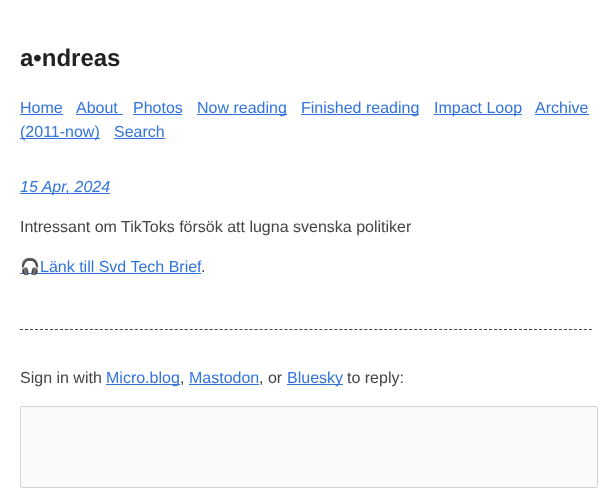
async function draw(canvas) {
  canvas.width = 612
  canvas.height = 497
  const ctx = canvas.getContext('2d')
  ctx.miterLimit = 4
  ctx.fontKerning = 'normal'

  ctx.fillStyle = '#fff'
  ctx.fillRect(0, 0, 612, 497)
  ctx.font = 'bold 24px Liberation Sans'
  ctx.fillStyle = '#222'
  ctx.fillText('a•ndreas', 20, 66)
  ctx.font = '16px Liberation Sans'
  ctx.fillStyle = '#3273dc'
  ctx.fillText('Home', 20, 113)
  ctx.fillRect(20, 114, 43, 1)
  ctx.fillText('About', 76, 113)
  ctx.fillRect(76, 114, 47, 1)
  ctx.fillText('Photos', 133, 113)
  ctx.fillRect(133, 114, 49, 1)
  ctx.fillRect(197, 114, 90, 1)
  ctx.fillText('Now reading', 197, 113)
  ctx.fillRect(301, 114, 118, 1)
  ctx.fillText('Finished reading', 301, 113)
  ctx.fillRect(434, 114, 88, 1)
  ctx.fillText('Impact Loop', 434, 113)
  ctx.fillText('Archive', 535, 113)
  ctx.fillRect(535, 114, 54, 1)
  ctx.fillRect(20, 138, 80, 1)
  ctx.fillText('(2011-now)', 20, 137)
  ctx.fillText('Search', 114, 137)
  ctx.fillRect(114, 138, 51, 1)
  ctx.fillRect(20, 193, 90, 1)
  ctx.font = 'italic 16px Liberation Sans'
  ctx.fillText('15 Apr, 2024', 20, 192)
  ctx.font = '16px Liberation Sans'
  ctx.fillStyle = '#444'
  ctx.fillText('Intressant om TikToks försök att lugna svenska politiker', 20, 232)
  ctx.fillStyle = '#3273dc'
  ctx.fillRect(20, 273, 181, 1)
  ctx.font = '16px Noto Color Emoji'
  ctx.fillText('🎧', 20, 272)
  ctx.font = '16px Liberation Sans'
  ctx.fillText('Länk till Svd Tech Brief', 40, 272)
  ctx.fillStyle = '#444'
  ctx.fillText('.', 201, 272)
  ctx.beginPath()
  ctx.moveTo(20, 329.5)
  ctx.lineTo(592, 329.5)
  ctx.strokeStyle = '#444'
  ctx.setLineDash([3, 1.99])
  ctx.stroke()
  ctx.fillText('Sign in with', 20, 383)
  ctx.fillStyle = '#3273dc'
  ctx.fillRect(106, 384, 74, 1)
  ctx.fillText('Micro.blog', 106, 383)
  ctx.fillStyle = '#444'
  ctx.fillText(',', 180, 383)
  ctx.fillStyle = '#3273dc'
  ctx.fillText('Mastodon', 189, 383)
  ctx.fillRect(189, 384, 70, 1)
  ctx.fillStyle = '#444'
  ctx.fillText(', or', 259, 383)
  ctx.fillStyle = '#3273dc'
  ctx.fillRect(287, 384, 56, 1)
  ctx.fillText('Bluesky', 287, 383)
  ctx.fillStyle = '#444'
  ctx.fillText('to reply:', 347, 383)
  ctx.fillStyle = '#fafafa'
  ctx.beginPath()
  ctx.roundRect(20.5, 406.5, 577, 81, 1.5)
  ctx.fill()
  ctx.strokeStyle = '#d2d2d2'
  ctx.setLineDash([])
  ctx.stroke()
}

draw(document.querySelector('canvas'))
